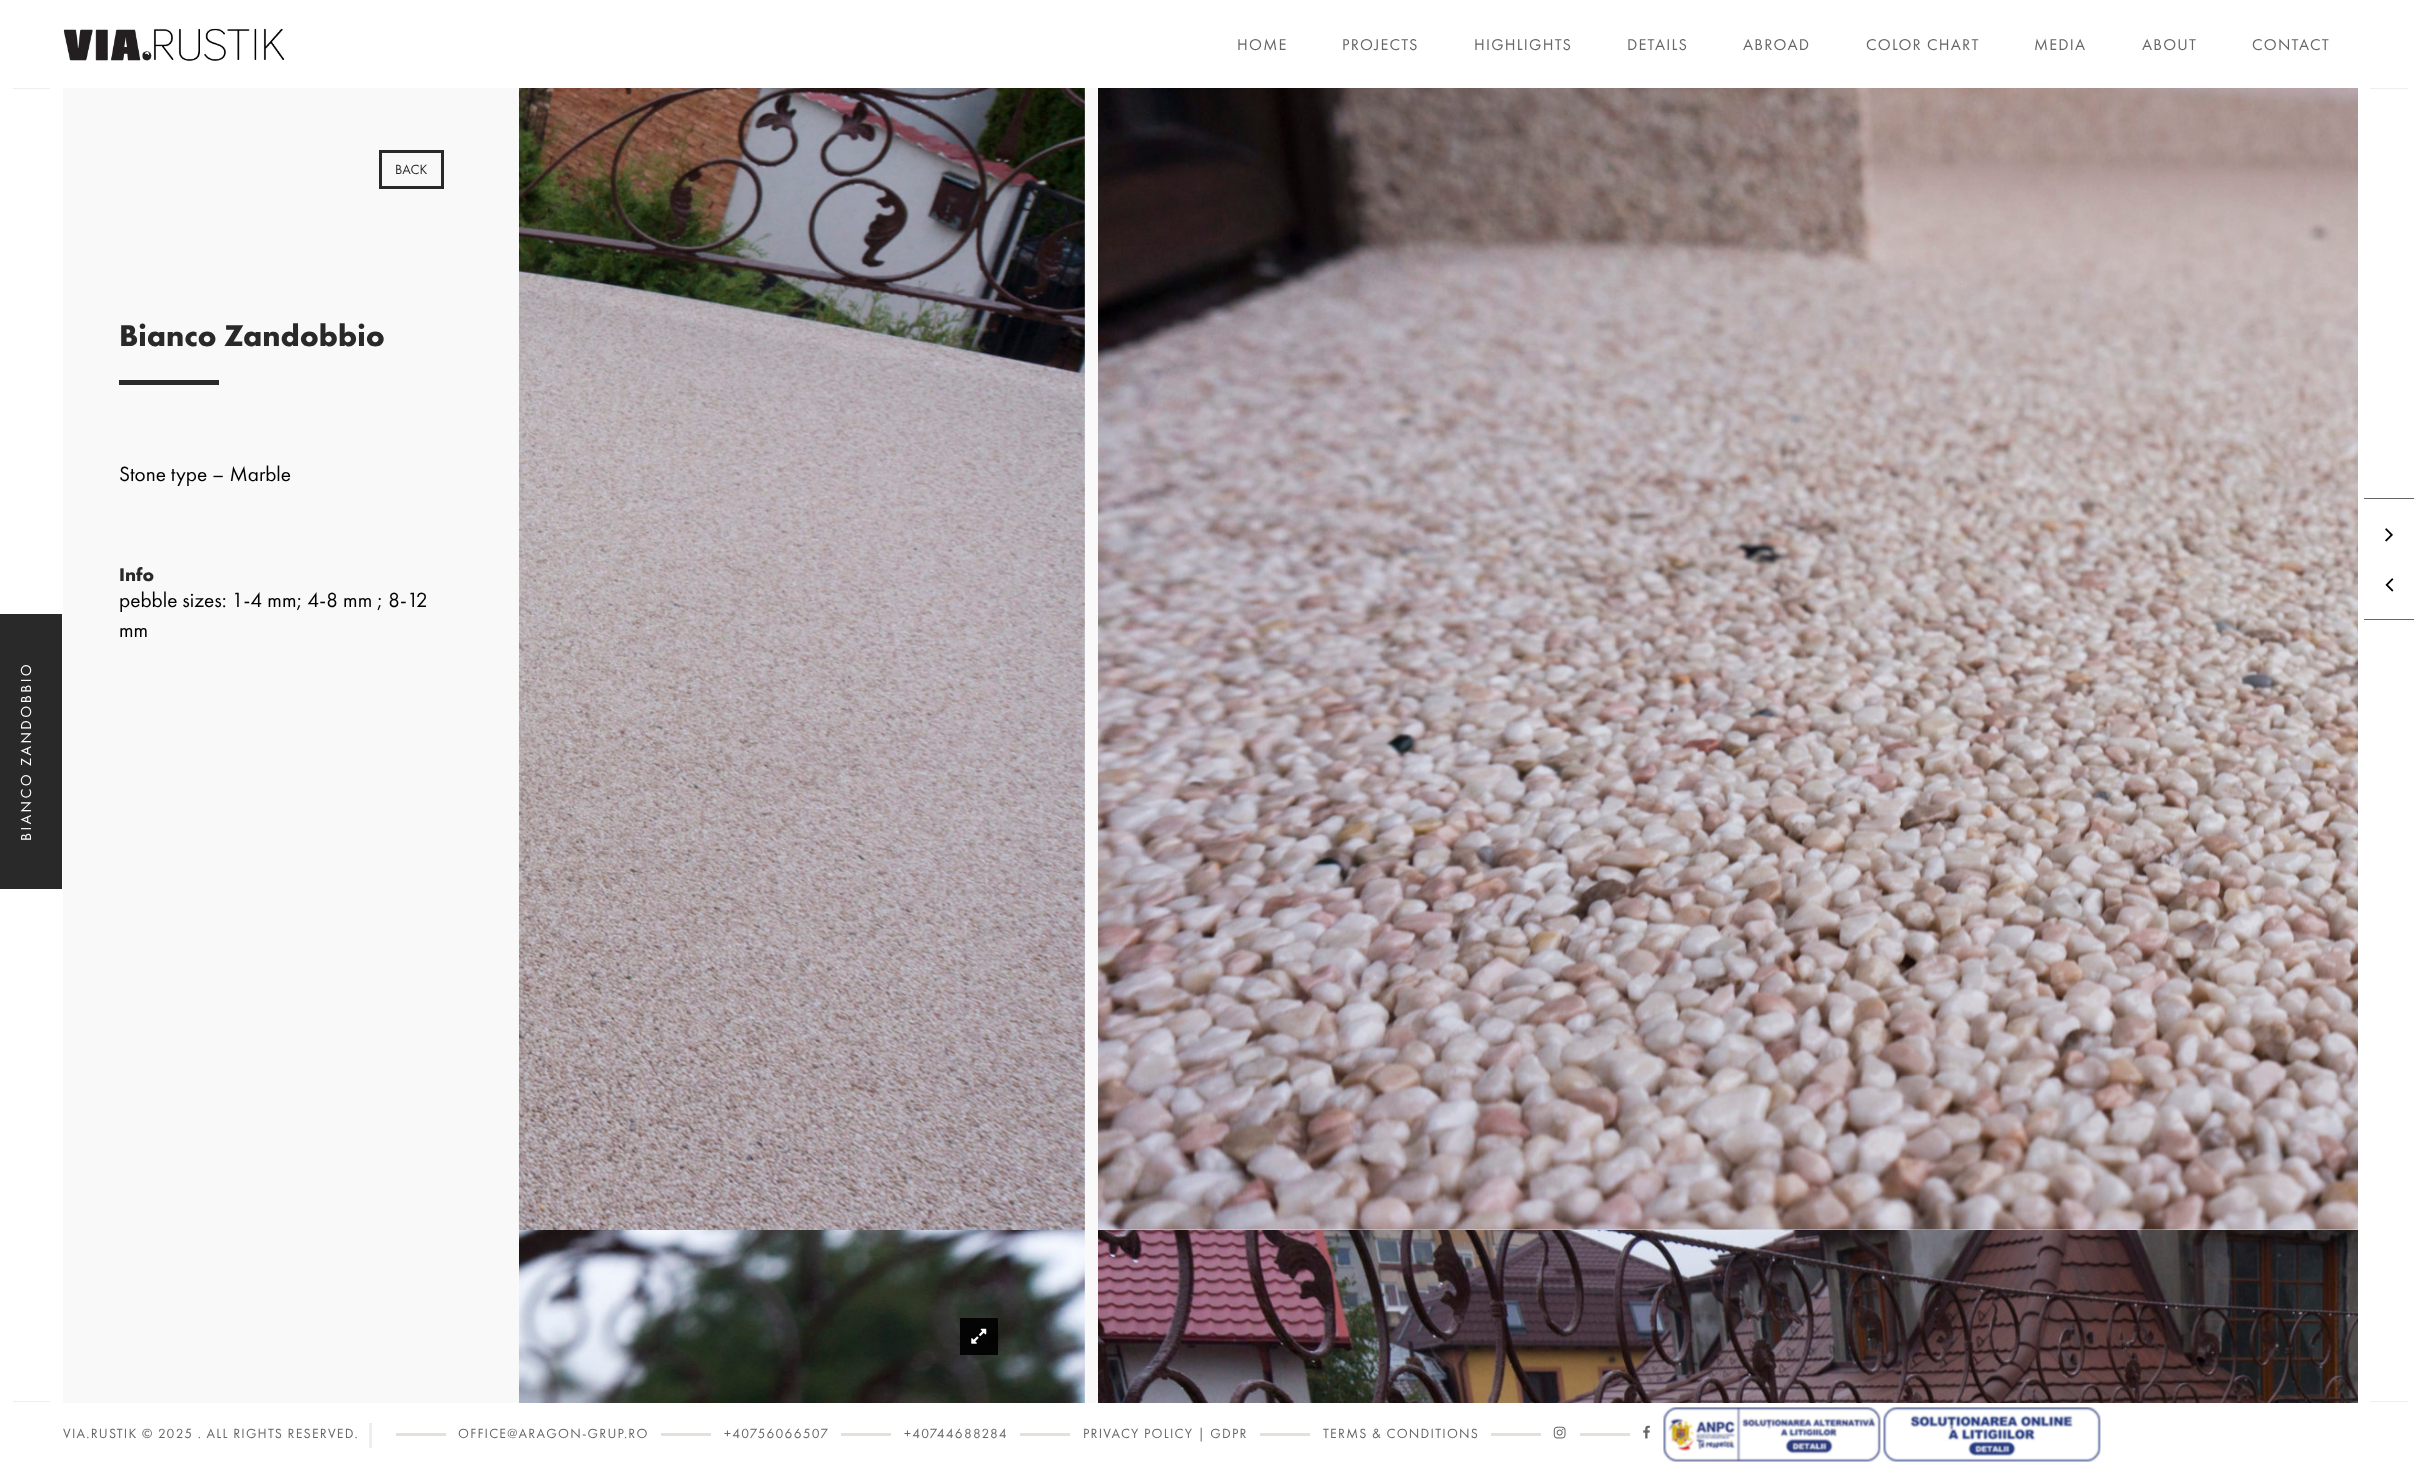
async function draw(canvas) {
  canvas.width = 2419
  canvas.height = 1465
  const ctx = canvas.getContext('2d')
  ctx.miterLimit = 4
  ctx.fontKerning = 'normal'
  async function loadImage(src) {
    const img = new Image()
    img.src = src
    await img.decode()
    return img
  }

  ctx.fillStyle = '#f9f9f9'
  ctx.fillRect(0, 0, 2419, 1465)
  ctx.fillStyle = '#fff'
  ctx.fillRect(0, 0, 2419, 88)
  ctx.drawImage(await loadImage('image0.png'), 63, 28, 222, 33)
  ctx.letterSpacing = '1.25px'
  ctx.font = '16.25px Futura PT'
  ctx.fillStyle = '#666'
  ctx.fillText('HOME', 1237, 50)
  ctx.fillText('PROJECTS', 1342, 50)
  ctx.fillText('HIGHLIGHTS', 1474, 50)
  ctx.fillText('DETAILS', 1627, 50)
  ctx.fillText('ABROAD', 1743, 50)
  ctx.fillText('COLOR CHART', 1866, 50)
  ctx.fillText('MEDIA', 2034, 50)
  ctx.fillText('ABOUT', 2142, 50)
  ctx.fillText('CONTACT', 2252, 50)
  ctx.fillStyle = '#fff'
  ctx.fillRect(0, 88, 63, 1315)
  ctx.fillStyle = '#eee'
  ctx.fillRect(13, 88, 37, 1)
  ctx.fillRect(13, 1401, 37, 1)
  ctx.fillStyle = '#fff'
  ctx.fillRect(2358, 88, 61, 1315)
  ctx.fillStyle = '#eee'
  ctx.fillRect(2370, 88, 38, 1)
  ctx.fillRect(2370, 1401, 38, 1)
  ctx.strokeStyle = '#292929'
  ctx.lineWidth = 3
  ctx.strokeRect(380.5, 151.5, 62, 36)
  ctx.letterSpacing = '0px'
  ctx.font = '13.75px Futura PT'
  ctx.fillStyle = '#292929'
  ctx.fillText('BACK', 395, 174)
  ctx.font = 'bold 31.25px Futura PT'
  ctx.fillText('Bianco Zandobbio', 119, 346)
  ctx.fillRect(119, 380, 100, 5)
  ctx.font = '21.25px Futura PT'
  ctx.fillStyle = '#000'
  ctx.fillText('Stone type – Marble', 119, 481)
  ctx.font = 'bold 19px Futura PT'
  ctx.fillStyle = '#292929'
  ctx.fillText('Info', 119, 581)
  ctx.font = '21.25px Futura PT'
  ctx.fillStyle = '#000'
  ctx.fillText('pebble sizes: 1-4 mm; 4-8 mm ; 8-12', 119, 607)
  ctx.fillText('mm', 119, 637)
  ctx.drawImage(await loadImage('image1.png'), 519, 88, 566, 1142)
  ctx.drawImage(await loadImage('image2.png'), 1098, 88, 1260, 1142)
  ctx.drawImage(await loadImage('image3.png'), 519, 1230, 566, 173)
  ctx.fillStyle = '#000000e8'
  ctx.fillRect(960, 1318, 38, 37)
  ctx.drawImage(await loadImage('image4.png'), 971, 1328, 16, 16)
  ctx.drawImage(await loadImage('image5.png'), 1098, 1230, 1260, 173)
  ctx.fillStyle = '#666'
  ctx.fillRect(2364, 498, 50, 1)
  ctx.drawImage(await loadImage('image6.png'), 2385, 528, 8, 14)
  ctx.drawImage(await loadImage('image7.png'), 2385, 578, 9, 14)
  ctx.fillRect(2364, 619, 50, 1)
  ctx.fillStyle = '#292929'
  ctx.fillRect(0, 614, 62, 275)
  ctx.letterSpacing = '2.5px'
  ctx.font = '15px Futura PT'
  ctx.fillStyle = '#fff'
  ctx.save()
  ctx.translate(31, 841)
  ctx.rotate(-90 * Math.PI / 180)
  ctx.fillText('BIANCO ZANDOBBIO', 0, 0)
  ctx.restore()
  ctx.fillRect(0, 1403, 2419, 62)
  ctx.letterSpacing = '1.25px'
  ctx.font = '13.75px Futura PT'
  ctx.fillStyle = '#666'
  ctx.fillText('VIA.RUSTIK © 2025 . ALL RIGHTS RESERVED.', 63, 1438)
  ctx.fillStyle = '#eee'
  ctx.fillRect(369, 1423, 3, 25)
  ctx.fillStyle = '#e5dfda'
  ctx.fillRect(396, 1433, 50, 3)
  ctx.fillStyle = '#666'
  ctx.fillText('OFFICE@ARAGON-GRUP.RO', 458, 1438)
  ctx.fillStyle = '#e5dfda'
  ctx.fillRect(661, 1433, 50, 3)
  ctx.fillStyle = '#666'
  ctx.fillText('+40756066507', 724, 1438)
  ctx.fillStyle = '#e5dfda'
  ctx.fillRect(841, 1433, 50, 3)
  ctx.fillStyle = '#666'
  ctx.fillText('+40744688284', 904, 1438)
  ctx.fillStyle = '#e5dfda'
  ctx.fillRect(1020, 1433, 50, 3)
  ctx.fillStyle = '#666'
  ctx.fillText('PRIVACY POLICY | GDPR', 1083, 1438)
  ctx.fillStyle = '#e5dfda'
  ctx.fillRect(1260, 1433, 50, 3)
  ctx.fillStyle = '#666'
  ctx.fillText('TERMS & CONDITIONS', 1323, 1438)
  ctx.fillStyle = '#e5dfda'
  ctx.fillRect(1491, 1433, 50, 3)
  ctx.drawImage(await loadImage('image8.png'), 1553, 1426, 13, 13)
  ctx.fillRect(1580, 1433, 50, 3)
  ctx.drawImage(await loadImage('image9.png'), 1643, 1425, 7, 14)
  ctx.drawImage(await loadImage('image10.png'), 1663, 1407, 218, 55)
  ctx.drawImage(await loadImage('image11.png'), 1883, 1407, 218, 55)
}

draw(document.querySelector('canvas'))
